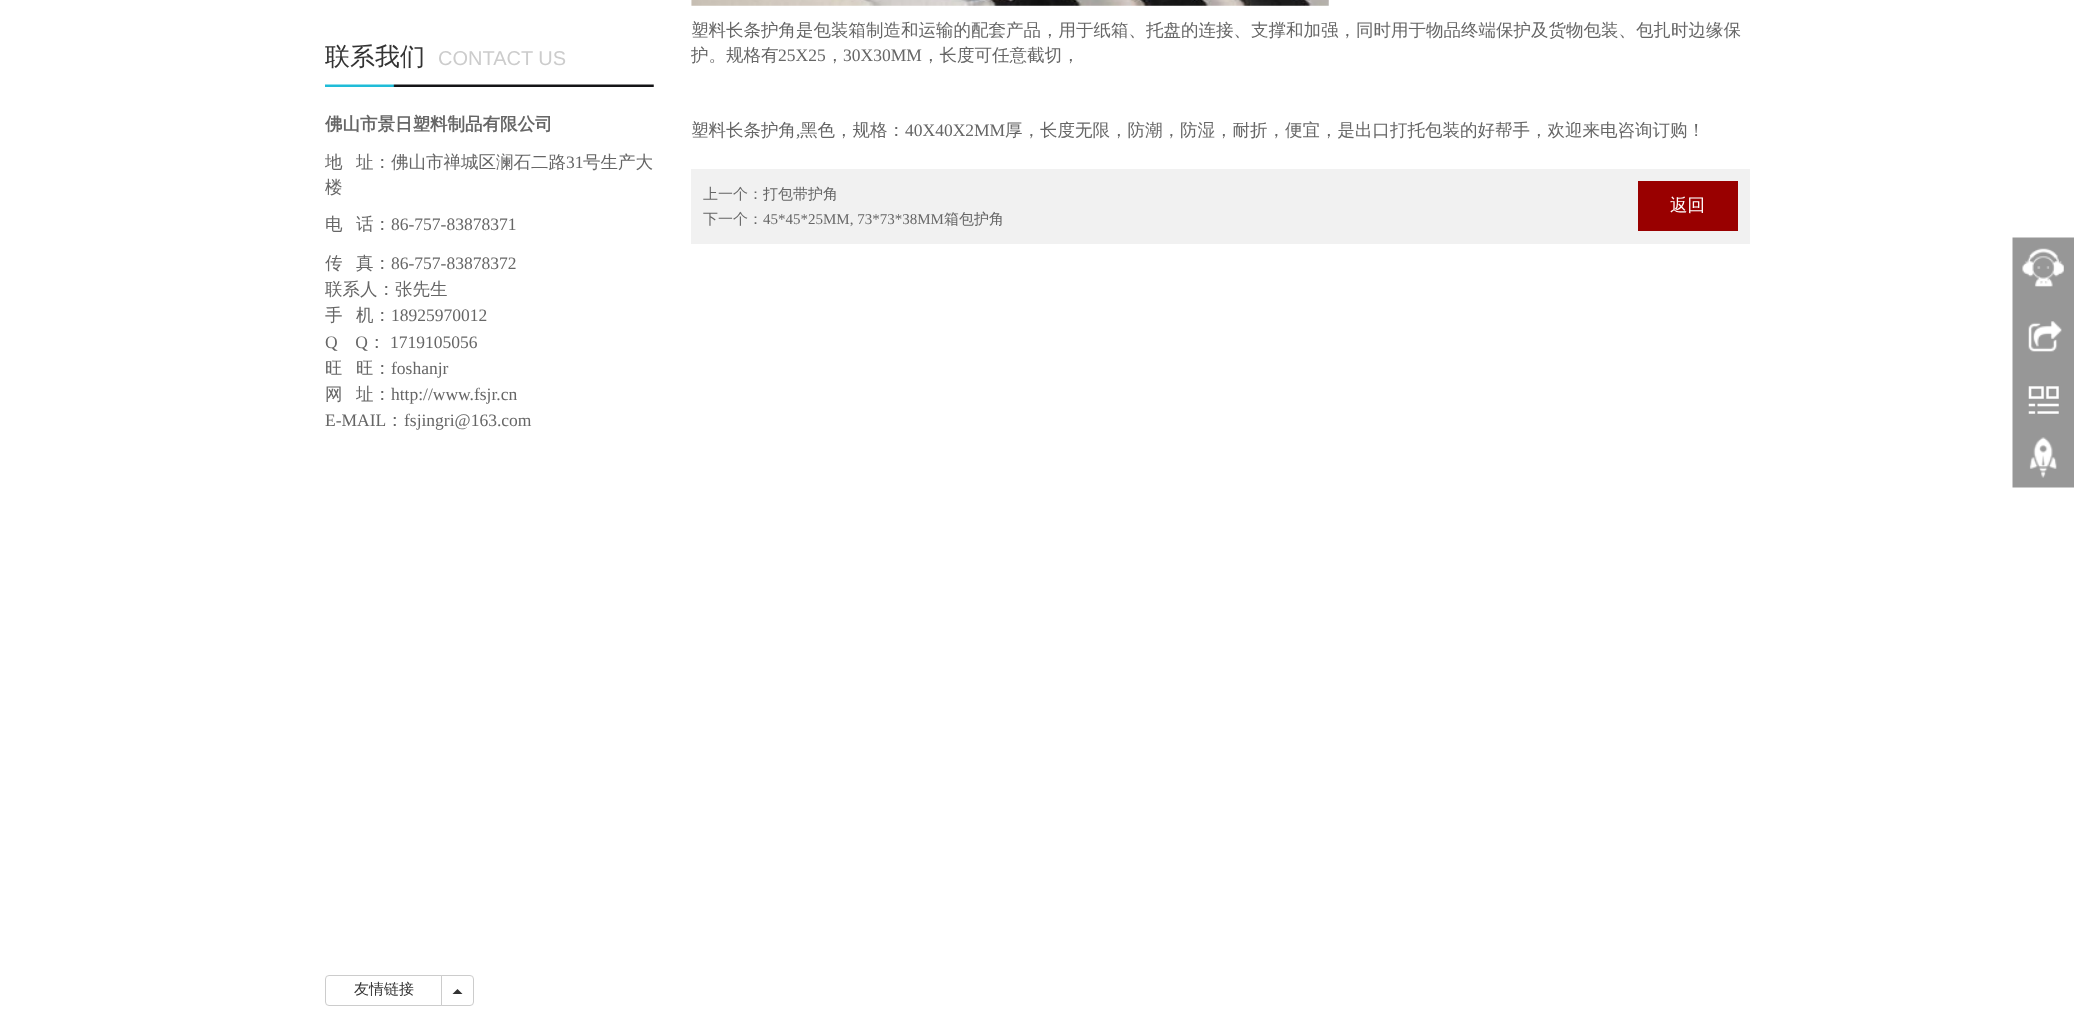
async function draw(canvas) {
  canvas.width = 2074
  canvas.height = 1020
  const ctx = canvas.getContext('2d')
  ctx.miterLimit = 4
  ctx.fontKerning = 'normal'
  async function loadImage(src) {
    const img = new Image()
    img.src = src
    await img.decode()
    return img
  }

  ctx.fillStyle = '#fff'
  ctx.fillRect(0, 0, 2074, 1020)
  ctx.drawImage(await loadImage('image0.png'), 325, 84, 329, 3)
  ctx.font = '500 25px WenQuanYi Zen Hei'
  ctx.fillStyle = '#333'
  ctx.fillText('联系我们', 325, 65)
  ctx.font = '20px Liberation Sans'
  ctx.fillStyle = '#ccc'
  ctx.fillText('CONTACT US', 438, 65)
  ctx.font = 'bold 17.5px WenQuanYi Zen Hei'
  ctx.fillStyle = '#666'
  ctx.fillText('佛山市景日塑料制品有限公司', 325, 130)
  ctx.font = '500 17.5px WenQuanYi Zen Hei'
  ctx.fillText('地', 325, 168)
  ctx.fillText('址：佛山市禅城区澜石二路', 356, 168)
  ctx.font = '17.5px Liberation Serif'
  ctx.fillText('31', 566, 168)
  ctx.font = '500 17.5px WenQuanYi Zen Hei'
  ctx.fillText('号生产大', 583, 168)
  ctx.fillText('楼', 325, 193)
  ctx.fillText('电', 325, 230)
  ctx.fillText('话：', 356, 230)
  ctx.font = '17.5px Liberation Serif'
  ctx.fillText('86-757-83878371', 391, 230)
  ctx.font = '500 17.5px WenQuanYi Zen Hei'
  ctx.fillText('传', 325, 269)
  ctx.fillText('真：', 356, 269)
  ctx.font = '17.5px Liberation Serif'
  ctx.fillText('86-757-83878372', 391, 269)
  ctx.font = '500 17.5px WenQuanYi Zen Hei'
  ctx.fillText('联系人：张先生', 325, 295)
  ctx.fillText('手', 325, 321)
  ctx.fillText('机：', 356, 321)
  ctx.font = '17.5px Liberation Serif'
  ctx.fillText('18925970012', 391, 321)
  ctx.fillText('Q    Q', 325, 348)
  ctx.font = '500 17.5px WenQuanYi Zen Hei'
  ctx.fillText('：', 368, 348)
  ctx.font = '17.5px Liberation Serif'
  ctx.fillText('1719105056', 390, 348)
  ctx.font = '500 17.5px WenQuanYi Zen Hei'
  ctx.fillText('旺', 325, 374)
  ctx.fillText('旺：', 356, 374)
  ctx.font = '17.5px Liberation Serif'
  ctx.fillText('foshanjr', 391, 374)
  ctx.font = '500 17.5px WenQuanYi Zen Hei'
  ctx.fillText('网', 325, 400)
  ctx.fillText('址：', 356, 400)
  ctx.font = '17.5px Liberation Serif'
  ctx.fillText('http://www.fsjr.cn', 391, 400)
  ctx.fillText('E-MAIL', 325, 426)
  ctx.font = '500 17.5px WenQuanYi Zen Hei'
  ctx.fillText('：', 386, 426)
  ctx.font = '17.5px Liberation Serif'
  ctx.fillText('fsjingri@163.com', 404, 426)
  ctx.beginPath()
  ctx.roundRect(325.5, 975.5, 117, 30, [3.5, 0, 0, 3.5])
  ctx.strokeStyle = '#ccc'
  ctx.stroke()
  ctx.font = '500 15px WenQuanYi Zen Hei'
  ctx.fillStyle = '#333'
  ctx.fillText('友情链接', 354, 994)
  ctx.fillStyle = '#fff'
  ctx.beginPath()
  ctx.roundRect(441.5, 975.5, 32, 30, [0, 3.5, 3.5, 0])
  ctx.fill()
  ctx.stroke()
  ctx.fillStyle = '#333'
  ctx.beginPath()
  ctx.moveTo(462.5, 994)
  ctx.lineTo(452.5, 994)
  ctx.lineTo(457.5, 989)
  ctx.closePath()
  ctx.fill()
  ctx.drawImage(await loadImage('image1.png'), 691, 0, 638, 6)
  ctx.font = '500 17.5px WenQuanYi Zen Hei'
  ctx.fillStyle = '#666'
  ctx.fillText('塑料长条护角是包装箱制造和运输的配套产品，用于纸箱、托盘的连接、支撑和加强，同时用于物品终端保护及货物包装、包扎时边缘保', 691, 36)
  ctx.save()
  ctx.beginPath()
  ctx.rect(691, 0, 1059, 156)
  ctx.clip()
  ctx.fillText('护。规格有', 691, 61)
  ctx.restore()
  ctx.font = '17.5px Liberation Serif'
  ctx.fillText('25X25', 778, 61)
  ctx.font = '500 17.5px WenQuanYi Zen Hei'
  ctx.fillText('，', 826, 61)
  ctx.font = '17.5px Liberation Serif'
  ctx.fillText('30X30MM', 843, 61)
  ctx.font = '500 17.5px WenQuanYi Zen Hei'
  ctx.fillText('，长度可任意截切，', 922, 61)
  ctx.fillText('塑料长条护角', 691, 136)
  ctx.font = '17.5px Liberation Serif'
  ctx.fillText(',', 796, 136)
  ctx.font = '500 17.5px WenQuanYi Zen Hei'
  ctx.fillText('黑色，规格：', 800, 136)
  ctx.font = '17.5px Liberation Serif'
  ctx.fillText('40X40X2MM', 905, 136)
  ctx.font = '500 17.5px WenQuanYi Zen Hei'
  ctx.fillText('厚，长度无限，防潮，防湿，耐折，便宜，是出口打托包装的好帮手，欢迎来电咨询订购！', 1005, 136)
  ctx.fillStyle = '#f1f1f1'
  ctx.fillRect(691, 169, 1059, 75)
  ctx.font = '500 15px WenQuanYi Zen Hei'
  ctx.fillStyle = '#666'
  ctx.fillText('上一个：打包带护角', 703, 199)
  ctx.fillText('下一个：', 703, 224)
  ctx.font = '15px Liberation Serif'
  ctx.fillText('45*45*25MM, 73*73*38MM', 763, 224)
  ctx.font = '500 15px WenQuanYi Zen Hei'
  ctx.fillText('箱包护角', 944, 224)
  ctx.fillStyle = '#900'
  ctx.fillRect(1638, 181, 100, 50)
  ctx.font = '500 17.5px WenQuanYi Zen Hei'
  ctx.fillStyle = '#fff'
  ctx.fillText('返回', 1670, 211)
  ctx.drawImage(await loadImage('image2.png'), 2012, 237, 62, 251)
}

draw(document.querySelector('canvas'))
